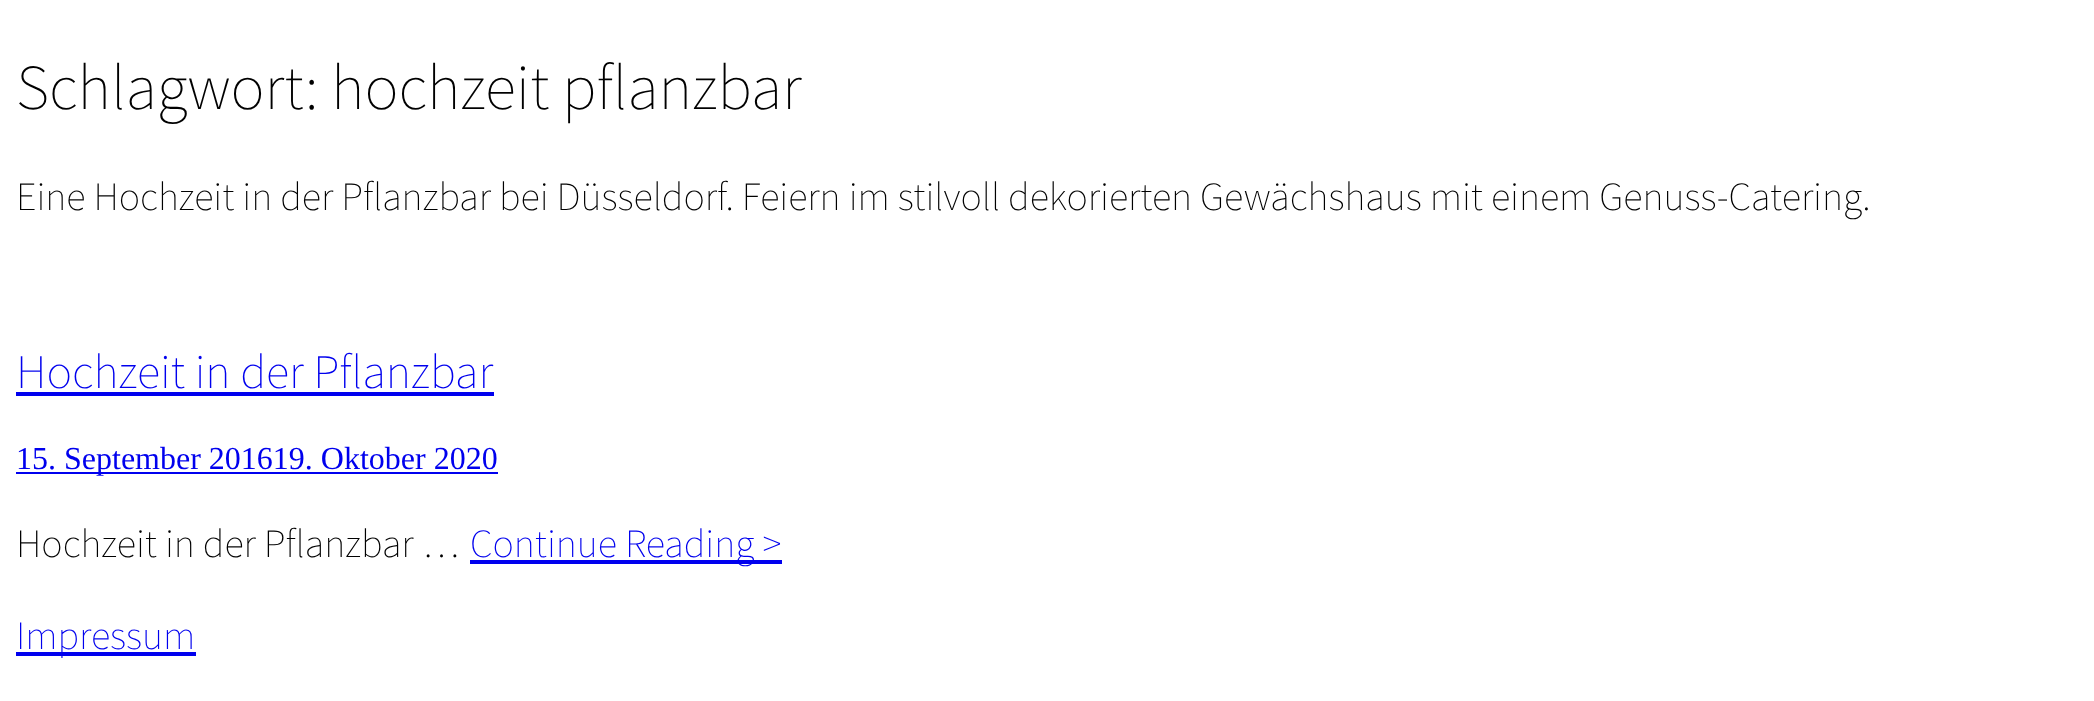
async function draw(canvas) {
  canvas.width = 2094
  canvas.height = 701
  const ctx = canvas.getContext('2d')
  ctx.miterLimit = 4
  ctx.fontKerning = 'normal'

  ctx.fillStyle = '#fff'
  ctx.fillRect(0, 0, 2094, 701)
  ctx.font = '200 64px Assistant'
  ctx.fillStyle = '#000'
  ctx.fillText('Schlagwort: hochzeit pflanzbar', 16, 109)
  ctx.font = '200 40px Assistant'
  ctx.fillText('Eine Hochzeit in der Pflanzbar bei Düsseldorf. Feiern im stilvoll dekorierten Gewächshaus mit einem Genuss-Catering.', 16, 210)
  ctx.font = '200 48px Assistant'
  ctx.fillStyle = '#00e'
  ctx.fillText('Hochzeit in der Pflanzbar', 16, 388)
  ctx.fillRect(16, 392, 478, 4)
  ctx.fillRect(16, 472, 482, 2)
  ctx.font = '32px Liberation Serif'
  ctx.fillText('15. September 201619. Oktober 2020', 16, 469)
  ctx.font = '200 40px Assistant'
  ctx.fillStyle = '#000'
  ctx.fillText('Hochzeit in der Pflanzbar …', 16, 557)
  ctx.fillStyle = '#00e'
  ctx.fillRect(470, 560, 312, 4)
  ctx.fillText('Continue Reading >', 470, 557)
  ctx.fillRect(16, 652, 180, 4)
  ctx.fillText('Impressum', 16, 649)
}

draw(document.querySelector('canvas'))
